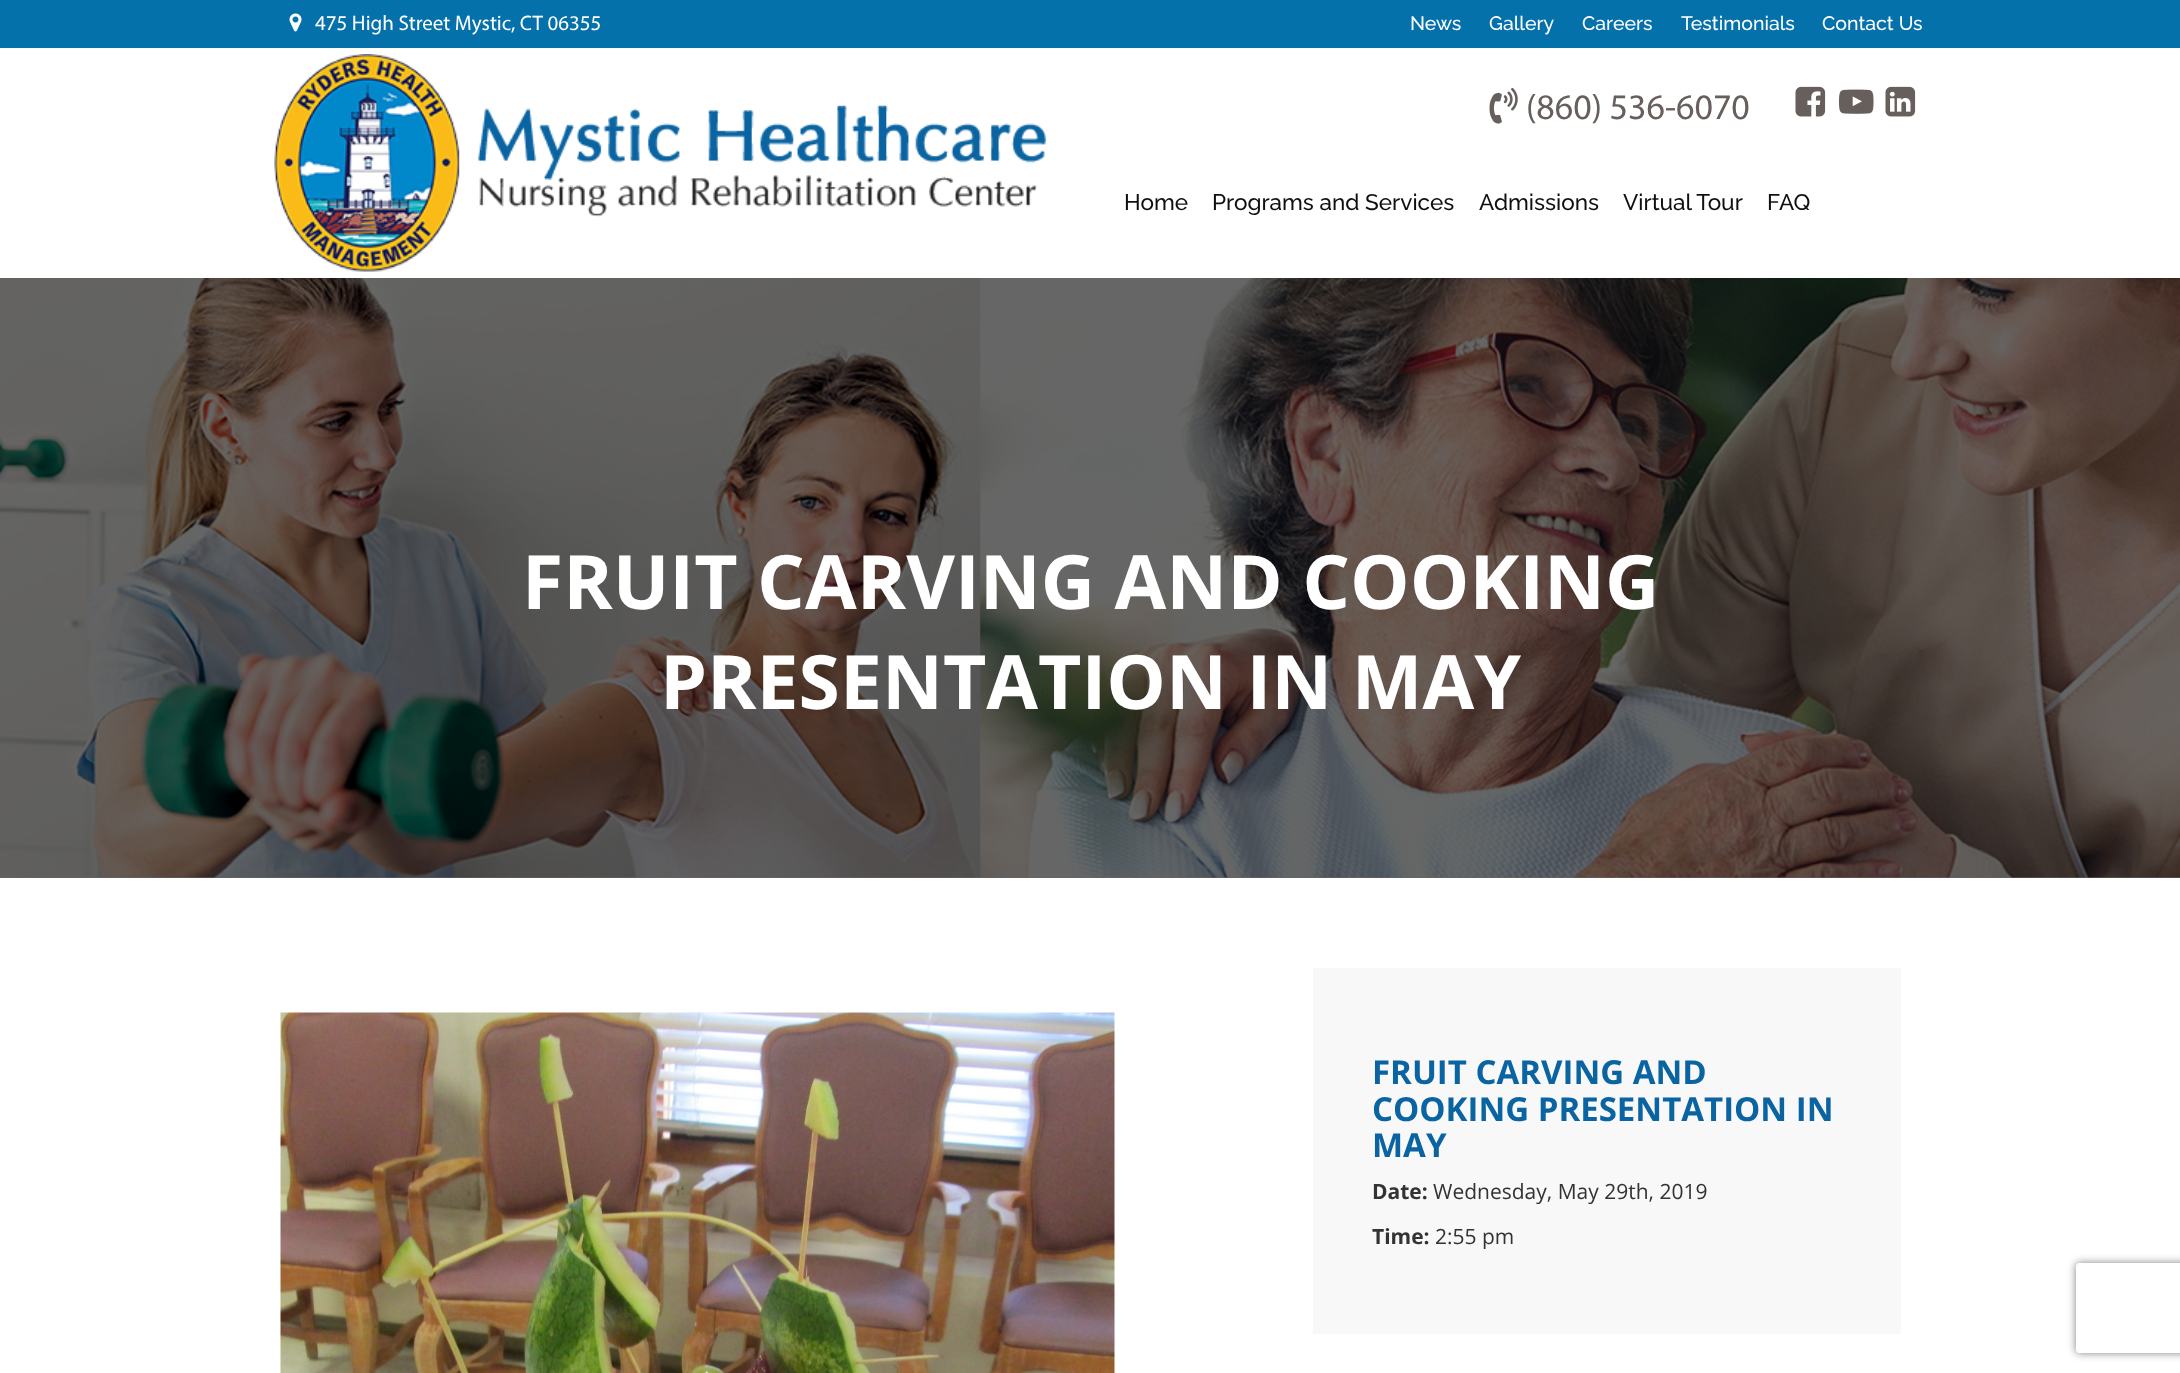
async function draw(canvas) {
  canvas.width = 2180
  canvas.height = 1373
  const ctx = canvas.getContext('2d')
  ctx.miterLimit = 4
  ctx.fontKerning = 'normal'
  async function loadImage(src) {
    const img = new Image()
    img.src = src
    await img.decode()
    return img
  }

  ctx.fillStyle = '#fff'
  ctx.fillRect(0, 0, 2180, 1373)
  ctx.fillStyle = '#666'
  ctx.fillRect(0, 877, 2180, 1)
  ctx.fillStyle = '#0571ab'
  ctx.fillRect(0, 0, 2180, 48)
  ctx.drawImage(await loadImage('image0.png'), 289, 13, 13, 19)
  ctx.font = '21px Myriad'
  ctx.fillStyle = '#fff'
  ctx.fillText('475 High Street Mystic, CT 06355', 315, 30)
  ctx.font = '500 19.5px Raleway'
  ctx.fillText('News', 1410, 30)
  ctx.fillText('Gallery', 1489, 30)
  ctx.fillText('Careers', 1582, 30)
  ctx.fillText('Testimonials', 1681, 30)
  ctx.fillText('Contact Us', 1822, 30)
  ctx.drawImage(await loadImage('image1.png'), 274, 54, 773, 218)
  ctx.drawImage(await loadImage('image2.png'), 1489, 87, 29, 37)
  ctx.font = '36px Myriad'
  ctx.fillStyle = '#675f5c'
  ctx.fillText('(860) 536-6070', 1526, 119)
  ctx.drawImage(await loadImage('image3.png'), 1795, 86, 31, 31)
  ctx.drawImage(await loadImage('image4.png'), 1839, 89, 35, 25)
  ctx.drawImage(await loadImage('image5.png'), 1885, 86, 31, 31)
  ctx.font = '500 22.5px Raleway'
  ctx.fillStyle = '#110f0f'
  ctx.fillText('Home', 1124, 210)
  ctx.fillText('Programs and Services', 1212, 210)
  ctx.fillText('Admissions', 1479, 210)
  ctx.fillText('Virtual Tour', 1623, 210)
  ctx.fillText('FAQ', 1767, 210)
  ctx.drawImage(await loadImage('image6.png'), 0, 278, 2180, 600)
  ctx.font = 'bold 75px Open Sans'
  ctx.fillStyle = '#fff'
  ctx.fillText('FRUIT CARVING AND COOKING', 522, 609)
  ctx.fillText('PRESENTATION IN MAY', 660, 709)
  ctx.drawImage(await loadImage('image7.png'), 280, 1012, 835, 361)
  ctx.fillStyle = '#f8f8f8'
  ctx.fillRect(1313, 968, 588, 366)
  ctx.font = 'bold 33px Open Sans'
  ctx.fillStyle = '#0b64a2'
  ctx.fillText('FRUIT CARVING AND', 1372, 1084)
  ctx.fillText('COOKING PRESENTATION IN', 1372, 1121)
  ctx.fillText('MAY', 1372, 1157)
  ctx.font = 'bold 21px Open Sans'
  ctx.fillStyle = '#333'
  ctx.fillText('Date:', 1372, 1199)
  ctx.font = '21px Open Sans'
  ctx.fillText('Wednesday, May 29th, 2019', 1433, 1199)
  ctx.font = 'bold 21px Open Sans'
  ctx.fillText('Time:', 1372, 1244)
  ctx.font = '21px Open Sans'
  ctx.fillText('2:55 pm', 1435, 1244)
  ctx.save()
  ctx.beginPath()
  ctx.moveTo(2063, 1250)
  ctx.lineTo(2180, 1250)
  ctx.lineTo(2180, 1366)
  ctx.lineTo(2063, 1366)
  ctx.closePath()
  ctx.moveTo(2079, 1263)
  ctx.lineTo(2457, 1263)
  ctx.bezierCurveTo(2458.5, 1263, 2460, 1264.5, 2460, 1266)
  ctx.lineTo(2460, 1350)
  ctx.bezierCurveTo(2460, 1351.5, 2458.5, 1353, 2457, 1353)
  ctx.lineTo(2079, 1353)
  ctx.bezierCurveTo(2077.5, 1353, 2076, 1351.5, 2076, 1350)
  ctx.lineTo(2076, 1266)
  ctx.bezierCurveTo(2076, 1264.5, 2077.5, 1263, 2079, 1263)
  ctx.closePath()
  ctx.clip('evenodd')
  ctx.fillStyle = '#808080'
  ctx.filter = 'blur(4px)'
  ctx.beginPath()
  ctx.roundRect(2076, 1263, 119, 90, 3)
  ctx.fill()
  ctx.filter = 'none'
  ctx.restore()
}

draw(document.querySelector('canvas'))
